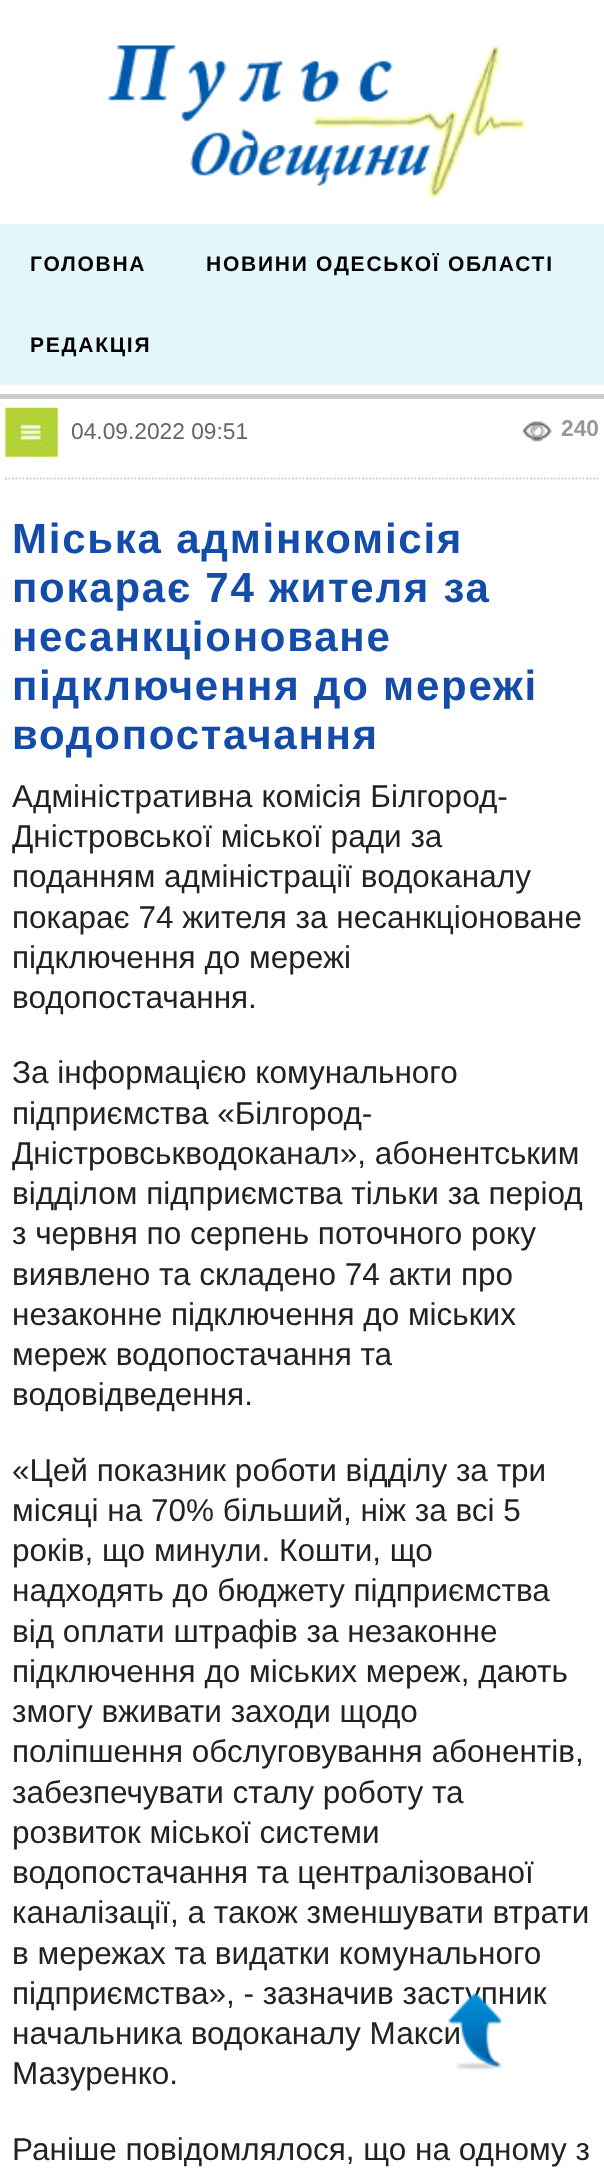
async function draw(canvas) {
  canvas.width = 604
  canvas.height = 2183
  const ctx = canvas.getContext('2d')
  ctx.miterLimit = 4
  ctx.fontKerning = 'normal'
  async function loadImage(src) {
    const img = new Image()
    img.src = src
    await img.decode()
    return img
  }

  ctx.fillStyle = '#fff'
  ctx.fillRect(0, 0, 604, 2183)
  ctx.fillStyle = '#ccc'
  ctx.fillRect(0, 394, 604, 5)
  ctx.drawImage(await loadImage('image0.png'), 108, 44, 419, 155)
  ctx.fillStyle = '#e2f6fc'
  ctx.fillRect(0, 224, 604, 161)
  ctx.letterSpacing = '1.75px'
  ctx.font = 'bold 21px Liberation Sans'
  ctx.fillStyle = '#000'
  ctx.fillText('ГОЛОВНА', 30, 271)
  ctx.fillText('НОВИНИ ОДЕСЬКОЇ ОБЛАСТІ', 206, 271)
  ctx.fillText('РЕДАКЦІЯ', 30, 352)
  ctx.beginPath()
  ctx.moveTo(5, 478.5)
  ctx.lineTo(600, 478.5)
  ctx.strokeStyle = '#ccc'
  ctx.lineWidth = 1.8
  ctx.setLineDash([1.75, 1.75])
  ctx.stroke()
  ctx.drawImage(await loadImage('image1.png'), 5, 407, 53, 50)
  ctx.letterSpacing = '0px'
  ctx.font = '22.75px Liberation Sans'
  ctx.fillStyle = '#666'
  ctx.fillText('04.09.2022 09:51', 71, 439)
  ctx.drawImage(await loadImage('image2.png'), 522, 421, 30, 21)
  ctx.font = 'bold 22.75px Liberation Sans'
  ctx.fillStyle = '#989898'
  ctx.fillText('240', 561, 436)
  ctx.letterSpacing = '1.75px'
  ctx.font = 'bold 42px Liberation Sans'
  ctx.fillStyle = '#144da9'
  ctx.fillText('Міська адмінкомісія', 12, 553)
  ctx.fillText('покарає 74 жителя за', 12, 602)
  ctx.fillText('несанкціоноване', 12, 651)
  ctx.fillText('підключення до мережі', 12, 700)
  ctx.fillText('водопостачання', 12, 749)
  ctx.letterSpacing = '0px'
  ctx.font = '31.5px Liberation Sans'
  ctx.fillStyle = '#222'
  ctx.fillText('Адміністративна комісія Білгород-', 12, 807)
  ctx.fillText('Дністровської міської ради за', 12, 847)
  ctx.fillText('поданням адміністрації водоканалу', 12, 887)
  ctx.fillText('покарає 74 жителя за несанкціоноване', 12, 928)
  ctx.fillText('підключення до мережі', 12, 968)
  ctx.fillText('водопостачання.', 12, 1008)
  ctx.fillText('За інформацією комунального', 12, 1083)
  ctx.fillText('підприємства «Білгород-', 12, 1124)
  ctx.fillText('Дністровськводоканал», абонентським', 12, 1164)
  ctx.fillText('відділом підприємства тільки за період', 12, 1204)
  ctx.fillText('з червня по серпень поточного року', 12, 1244)
  ctx.fillText('виявлено та складено 74 акти про', 12, 1285)
  ctx.fillText('незаконне підключення до міських', 12, 1325)
  ctx.fillText('мереж водопостачання та', 12, 1365)
  ctx.fillText('водовідведення.', 12, 1405)
  ctx.fillText('«Цей показник роботи відділу за три', 12, 1481)
  ctx.fillText('місяці на 70% більший, ніж за всі 5', 12, 1521)
  ctx.fillText('років, що минули. Кошти, що', 12, 1561)
  ctx.fillText('надходять до бюджету підприємства', 12, 1601)
  ctx.fillText('від оплати штрафів за незаконне', 12, 1642)
  ctx.fillText('підключення до міських мереж, дають', 12, 1682)
  ctx.fillText('змогу вживати заходи щодо', 12, 1722)
  ctx.fillText('поліпшення обслуговування абонентів,', 12, 1762)
  ctx.fillText('забезпечувати сталу роботу та', 12, 1803)
  ctx.fillText('розвиток міської системи', 12, 1843)
  ctx.fillText('водопостачання та централізованої', 12, 1883)
  ctx.fillText('каналізації, а також зменшувати втрати', 12, 1923)
  ctx.fillText('в мережах та видатки комунального', 12, 1964)
  ctx.fillText('підприємства», - зазначив заступник', 12, 2004)
  ctx.fillText('начальника водоканалу Макси', 12, 2044)
  ctx.fillText('Мазуренко.', 12, 2084)
  ctx.fillText('Раніше повідомлялося, що на одному з', 12, 2160)
  ctx.drawImage(await loadImage('image3.png'), 447, 1992, 56, 78)
}

draw(document.querySelector('canvas'))
